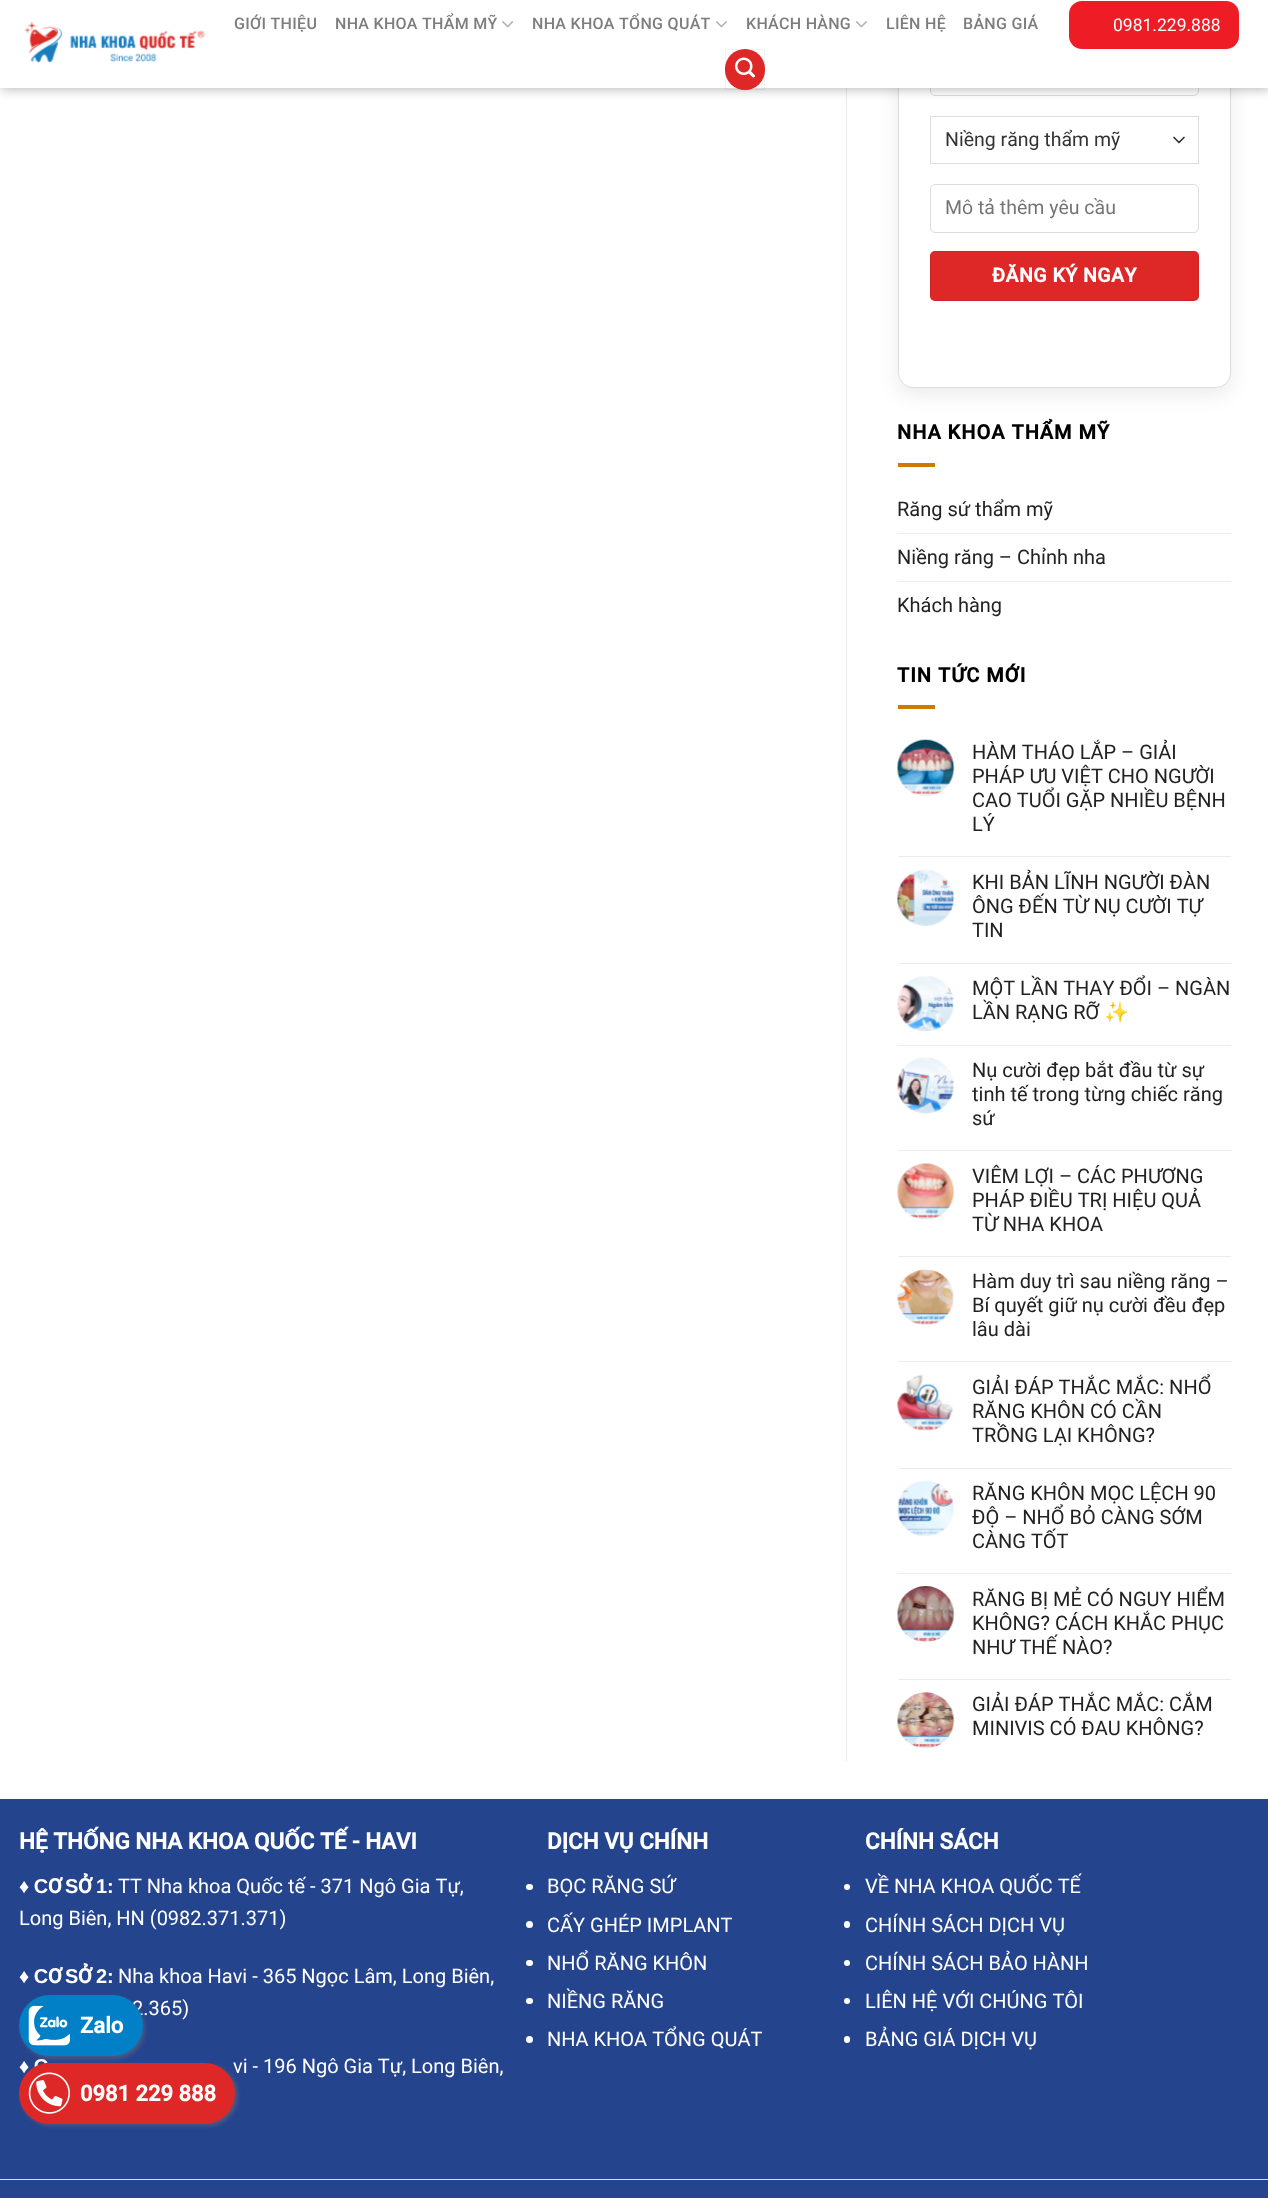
async function draw(canvas) {
  canvas.width = 1268
  canvas.height = 2198
  const ctx = canvas.getContext('2d')
  ctx.miterLimit = 4
  ctx.fontKerning = 'none'
  async function loadImage(src) {
    const img = new Image()
    img.src = src
    await img.decode()
    return img
  }

  ctx.fillStyle = '#fff'
  ctx.fillRect(0, 0, 1268, 2198)
  ctx.fillStyle = '#5a5a5a40'
  ctx.filter = 'blur(2.5px)'
  ctx.beginPath()
  ctx.roundRect(38, -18, 366, 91, 10)
  ctx.fill()
  ctx.filter = 'none'
  ctx.fillStyle = '#fff'
  ctx.beginPath()
  ctx.roundRect(38, -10, 366, 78, 10)
  ctx.fill()
  ctx.fillStyle = '#ececec'
  ctx.fillRect(846, 0, 1, 1761)
  ctx.fillStyle = '#00000014'
  ctx.filter = 'blur(10px)'
  ctx.beginPath()
  ctx.roundRect(898, -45, 333, 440, 15)
  ctx.fill()
  ctx.filter = 'none'
  ctx.fillStyle = '#fff'
  ctx.beginPath()
  ctx.roundRect(898.5, -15.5, 332, 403, 14.5)
  ctx.fill()
  ctx.strokeStyle = '#ddd'
  ctx.stroke()
  ctx.beginPath()
  ctx.roundRect(930.5, -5.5, 268, 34, 4.5)
  ctx.stroke()
  ctx.beginPath()
  ctx.roundRect(930.5, 48.5, 268, 47, 4.5)
  ctx.stroke()
  ctx.save()
  ctx.beginPath()
  ctx.moveTo(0, 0)
  ctx.lineTo(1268, 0)
  ctx.lineTo(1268, 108)
  ctx.lineTo(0, 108)
  ctx.closePath()
  ctx.moveTo(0, 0)
  ctx.lineTo(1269, 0)
  ctx.lineTo(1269, 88)
  ctx.lineTo(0, 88)
  ctx.closePath()
  ctx.clip('evenodd')
  ctx.fillStyle = '#00000026'
  ctx.filter = 'blur(6px)'
  ctx.beginPath()
  ctx.rect(1, 1, 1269, 88)
  ctx.fill()
  ctx.filter = 'none'
  ctx.restore()
  ctx.fillStyle = '#ffffffe6'
  ctx.fillRect(0, 0, 1268, 88)
  ctx.fillRect(40, 0, 1191, 88)
  ctx.save()
  ctx.beginPath()
  ctx.moveTo(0, 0)
  ctx.lineTo(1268, 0)
  ctx.lineTo(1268, 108)
  ctx.lineTo(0, 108)
  ctx.closePath()
  ctx.moveTo(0, 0)
  ctx.lineTo(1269, 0)
  ctx.lineTo(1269, 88)
  ctx.lineTo(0, 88)
  ctx.closePath()
  ctx.clip('evenodd')
  ctx.fillStyle = '#00000026'
  ctx.filter = 'blur(6px)'
  ctx.beginPath()
  ctx.rect(1, 1, 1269, 88)
  ctx.fill()
  ctx.filter = 'none'
  ctx.restore()
  ctx.drawImage(await loadImage('image0.png'), 24, 21, 181, 42)
  ctx.letterSpacing = '0.3px'
  ctx.font = '500 16px Roboto'
  ctx.fillStyle = '#7d7d7d'
  ctx.fillText('GIỚI THIỆU', 234, 29)
  ctx.fillText('NHA KHOA THẨM MỸ', 335, 29)
  ctx.drawImage(await loadImage('image1.png'), 502, 21, 12, 7)
  ctx.fillText('NHA KHOA TỔNG QUÁT', 532, 29)
  ctx.drawImage(await loadImage('image2.png'), 716, 21, 11, 7)
  ctx.fillText('KHÁCH HÀNG', 746, 29)
  ctx.drawImage(await loadImage('image2.png'), 856, 21, 11, 7)
  ctx.fillText('LIÊN HỆ', 886, 29)
  ctx.fillText('BẢNG GIÁ', 963, 29)
  ctx.fillStyle = '#ee1c25'
  ctx.beginPath()
  ctx.roundRect(1069, 1, 170, 48, 13)
  ctx.fill()
  ctx.letterSpacing = '0px'
  ctx.font = '17.5px Roboto'
  ctx.fillStyle = '#fff'
  ctx.fillText('0981.229.888', 1113, 31)
  ctx.fillStyle = '#dd2827'
  ctx.beginPath()
  ctx.roundRect(725, 49, 40, 41, 20)
  ctx.fill()
  ctx.strokeStyle = '#0000000d'
  ctx.strokeRect(725.5, 49.5, 39, 40)
  ctx.drawImage(await loadImage('image3.png'), 735, 57, 20, 21)
  ctx.beginPath()
  ctx.moveTo(1174, 137.5)
  ctx.lineTo(1179, 142.5)
  ctx.lineTo(1184, 137.5)
  ctx.strokeStyle = '#333'
  ctx.lineWidth = 1.7
  ctx.lineCap = 'round'
  ctx.lineJoin = 'round'
  ctx.stroke()
  ctx.strokeStyle = '#ddd'
  ctx.lineWidth = 1
  ctx.lineJoin = 'miter'
  ctx.strokeRect(930.5, 116.5, 268, 47)
  ctx.font = '19.5px Roboto'
  ctx.fillStyle = '#333'
  ctx.fillText('Niềng răng thẩm mỹ', 945, 146)
  ctx.beginPath()
  ctx.roundRect(930.5, 184.5, 268, 48, 4.5)
  ctx.stroke()
  ctx.fillStyle = '#757575'
  ctx.fillText('Mô tả thêm yêu cầu', 945, 214)
  ctx.fillStyle = '#dd2827'
  ctx.beginPath()
  ctx.roundRect(930, 251, 269, 50, 5)
  ctx.fill()
  ctx.strokeStyle = '#0000000d'
  ctx.strokeRect(930.5, 251.5, 268, 49)
  ctx.letterSpacing = '0.5px'
  ctx.font = 'bold 19.5px Roboto'
  ctx.fillStyle = '#fff'
  ctx.fillText('ĐĂNG KÝ NGAY', 992, 282)
  ctx.letterSpacing = '1px'
  ctx.font = 'bold 20px Roboto'
  ctx.fillStyle = '#000'
  ctx.fillText('NHA KHOA THẨM MỸ', 897, 439)
  ctx.fillStyle = '#cc7a00'
  ctx.fillRect(898, 463, 37, 4)
  ctx.letterSpacing = '0px'
  ctx.font = '20px Roboto'
  ctx.fillStyle = '#222'
  ctx.fillText('Răng sứ thẩm mỹ', 897, 516)
  ctx.fillStyle = '#ececec'
  ctx.fillRect(898, 533, 333, 1)
  ctx.fillStyle = '#222'
  ctx.fillText('Niềng răng – Chỉnh nha', 897, 564)
  ctx.fillStyle = '#ececec'
  ctx.fillRect(898, 581, 333, 1)
  ctx.fillStyle = '#222'
  ctx.fillText('Khách hàng', 897, 612)
  ctx.letterSpacing = '1px'
  ctx.font = 'bold 20px Roboto'
  ctx.fillStyle = '#000'
  ctx.fillText('TIN TỨC MỚI', 897, 682)
  ctx.fillStyle = '#cc7a00'
  ctx.fillRect(898, 705, 37, 4)
  ctx.drawImage(await loadImage('image4.png'), 897, 739, 58, 57)
  ctx.letterSpacing = '0px'
  ctx.font = '20px Roboto'
  ctx.fillStyle = '#222'
  ctx.fillText('HÀM THÁO LẮP – GIẢI', 972, 759)
  ctx.fillText('PHÁP ƯU VIỆT CHO NGƯỜI', 972, 783)
  ctx.fillText('CAO TUỔI GẶP NHIỀU BỆNH', 972, 807)
  ctx.fillText('LÝ', 972, 831)
  ctx.fillStyle = '#ececec'
  ctx.fillRect(898, 856, 333, 1)
  ctx.drawImage(await loadImage('image5.png'), 897, 869, 58, 58)
  ctx.fillStyle = '#222'
  ctx.fillText('KHI BẢN LĨNH NGƯỜI ĐÀN', 972, 889)
  ctx.fillText('ÔNG ĐẾN TỪ NỤ CƯỜI TỰ', 972, 913)
  ctx.fillText('TIN', 972, 937)
  ctx.fillStyle = '#ececec'
  ctx.fillRect(898, 963, 333, 1)
  ctx.drawImage(await loadImage('image6.png'), 897, 976, 57, 56)
  ctx.fillStyle = '#222'
  ctx.fillText('MỘT LẦN THAY ĐỔI – NGÀN', 972, 995)
  ctx.fillText('LẦN RẠNG RỠ', 972, 1019)
  ctx.font = '20px Noto Color Emoji'
  ctx.fillText('✨', 1104, 1019)
  ctx.fillStyle = '#ececec'
  ctx.fillRect(898, 1045, 333, 1)
  ctx.drawImage(await loadImage('image7.png'), 897, 1057, 57, 57)
  ctx.font = '20px Roboto'
  ctx.fillStyle = '#222'
  ctx.fillText('Nụ cười đẹp bắt đầu từ sự', 972, 1077)
  ctx.fillText('tinh tế trong từng chiếc răng', 972, 1101)
  ctx.fillText('sứ', 972, 1125)
  ctx.fillStyle = '#ececec'
  ctx.fillRect(898, 1150, 333, 1)
  ctx.drawImage(await loadImage('image8.png'), 897, 1163, 58, 57)
  ctx.fillStyle = '#222'
  ctx.fillText('VIÊM LỢI – CÁC PHƯƠNG', 972, 1183)
  ctx.fillText('PHÁP ĐIỀU TRỊ HIỆU QUẢ', 972, 1207)
  ctx.fillText('TỪ NHA KHOA', 972, 1231)
  ctx.fillStyle = '#ececec'
  ctx.fillRect(898, 1256, 333, 1)
  ctx.drawImage(await loadImage('image9.png'), 897, 1269, 57, 56)
  ctx.fillStyle = '#222'
  ctx.fillText('Hàm duy trì sau niềng răng –', 972, 1288)
  ctx.fillText('Bí quyết giữ nụ cười đều đẹp', 972, 1312)
  ctx.fillText('lâu dài', 972, 1336)
  ctx.fillStyle = '#ececec'
  ctx.fillRect(898, 1361, 333, 1)
  ctx.drawImage(await loadImage('image10.png'), 897, 1374, 56, 57)
  ctx.fillStyle = '#222'
  ctx.fillText('GIẢI ĐÁP THẮC MẮC: NHỔ', 972, 1394)
  ctx.fillText('RĂNG KHÔN CÓ CẦN', 972, 1418)
  ctx.fillText('TRỒNG LẠI KHÔNG?', 972, 1442)
  ctx.fillStyle = '#ececec'
  ctx.fillRect(898, 1468, 333, 1)
  ctx.drawImage(await loadImage('image11.png'), 897, 1480, 57, 57)
  ctx.fillStyle = '#222'
  ctx.fillText('RĂNG KHÔN MỌC LỆCH 90', 972, 1500)
  ctx.fillText('ĐỘ – NHỔ BỎ CÀNG SỚM', 972, 1524)
  ctx.fillText('CÀNG TỐT', 972, 1548)
  ctx.fillStyle = '#ececec'
  ctx.fillRect(898, 1573, 333, 1)
  ctx.drawImage(await loadImage('image12.png'), 897, 1586, 58, 57)
  ctx.fillStyle = '#222'
  ctx.fillText('RĂNG BỊ MẺ CÓ NGUY HIỂM', 972, 1606)
  ctx.fillText('KHÔNG? CÁCH KHẮC PHỤC', 972, 1630)
  ctx.fillText('NHƯ THẾ NÀO?', 972, 1654)
  ctx.fillStyle = '#ececec'
  ctx.fillRect(898, 1679, 333, 1)
  ctx.drawImage(await loadImage('image13.png'), 897, 1692, 58, 57)
  ctx.fillStyle = '#222'
  ctx.fillText('GIẢI ĐÁP THẮC MẮC: CẮM', 972, 1711)
  ctx.fillText('MINIVIS CÓ ĐAU KHÔNG?', 972, 1735)
  ctx.fillStyle = '#25448e'
  ctx.fillRect(0, 1799, 1268, 399)
  ctx.font = 'bold 22.5px Roboto'
  ctx.fillStyle = '#fff'
  ctx.fillText('HỆ THỐNG NHA KHOA QUỐC TẾ - HAVI', 19, 1849)
  ctx.wordSpacing = '-1px'
  ctx.font = 'bold 20px Liberation Sans'
  ctx.fillText('♦ C', 19, 1893)
  ctx.wordSpacing = '0px'
  ctx.font = 'bold 20px Roboto'
  ctx.fillText('Ơ', 48, 1893)
  ctx.font = 'bold 20px Liberation Sans'
  ctx.fillText('S', 65, 1893)
  ctx.font = 'bold 20px Roboto'
  ctx.fillText('Ở', 78, 1893)
  ctx.font = 'bold 20px Liberation Sans'
  ctx.fillText('1:', 96, 1893)
  ctx.font = '20px Roboto'
  ctx.fillText('TT Nha khoa Quốc tế - 371 Ngô Gia Tự,', 118, 1893)
  ctx.fillText('Long Biên, HN (0982.371.371)', 19, 1925)
  ctx.wordSpacing = '-1px'
  ctx.font = 'bold 20px Liberation Sans'
  ctx.fillText('♦ C', 19, 1983)
  ctx.wordSpacing = '0px'
  ctx.font = 'bold 20px Roboto'
  ctx.fillText('Ơ', 48, 1983)
  ctx.font = 'bold 20px Liberation Sans'
  ctx.fillText('S', 65, 1983)
  ctx.font = 'bold 20px Roboto'
  ctx.fillText('Ở', 78, 1983)
  ctx.font = 'bold 20px Liberation Sans'
  ctx.fillText('2:', 96, 1983)
  ctx.font = '20px Roboto'
  ctx.fillText('Nha khoa Havi - 365 Ngọc Lâm, Long Biên,', 118, 1983)
  ctx.fillText('2.365)', 132, 2015)
  ctx.wordSpacing = '-1px'
  ctx.font = 'bold 20px Liberation Sans'
  ctx.fillText('♦ C', 19, 2073)
  ctx.wordSpacing = '0px'
  ctx.font = '20px Roboto'
  ctx.fillText('vi - 196 Ngô Gia Tự, Long Biên,', 233, 2073)
  ctx.font = 'bold 22.5px Roboto'
  ctx.fillText('DỊCH VỤ CHÍNH', 547, 1849)
  ctx.beginPath()
  ctx.roundRect(526, 1884, 7, 6, 3)
  ctx.fill()
  ctx.font = '20px Roboto'
  ctx.fillText('BỌC RĂNG SỨ', 547, 1893)
  ctx.beginPath()
  ctx.arc(529.5, 1924.5, 3.5, 0, 2 * Math.PI)
  ctx.fill()
  ctx.fillText('CẤY GHÉP IMPLANT', 547, 1932)
  ctx.beginPath()
  ctx.roundRect(526, 1960, 7, 6, 3)
  ctx.fill()
  ctx.fillText('NHỔ RĂNG KHÔN', 547, 1970)
  ctx.beginPath()
  ctx.roundRect(526, 1998, 7, 6, 3)
  ctx.fill()
  ctx.fillText('NIỀNG RĂNG', 547, 2008)
  ctx.beginPath()
  ctx.arc(529.5, 2039.5, 3.5, 0, 2 * Math.PI)
  ctx.fill()
  ctx.fillText('NHA KHOA TỔNG QUÁT', 547, 2046)
  ctx.font = 'bold 22.5px Roboto'
  ctx.fillText('CHÍNH SÁCH', 865, 1849)
  ctx.beginPath()
  ctx.arc(847, 1887, 3, 0, 2 * Math.PI)
  ctx.fill()
  ctx.font = '20px Roboto'
  ctx.fillText('VỀ NHA KHOA QUỐC TẾ', 865, 1893)
  ctx.beginPath()
  ctx.roundRect(844, 1921, 6, 7, 3)
  ctx.fill()
  ctx.fillText('CHÍNH SÁCH DỊCH VỤ', 865, 1932)
  ctx.beginPath()
  ctx.arc(847, 1963, 3, 0, 2 * Math.PI)
  ctx.fill()
  ctx.fillText('CHÍNH SÁCH BẢO HÀNH', 865, 1970)
  ctx.beginPath()
  ctx.arc(847, 2001, 3, 0, 2 * Math.PI)
  ctx.fill()
  ctx.fillText('LIÊN HỆ VỚI CHÚNG TÔI', 865, 2008)
  ctx.beginPath()
  ctx.roundRect(844, 2036, 6, 7, 3)
  ctx.fill()
  ctx.fillText('BẢNG GIÁ DỊCH VỤ', 865, 2046)
  ctx.fillStyle = '#ddd'
  ctx.fillRect(0, 2179, 1268, 1)
  ctx.fillStyle = '#73737378'
  ctx.filter = 'blur(2px)'
  ctx.beginPath()
  ctx.roundRect(21, 1998, 124, 61, 30.5)
  ctx.fill()
  ctx.filter = 'none'
  ctx.fillStyle = '#0180c7'
  ctx.beginPath()
  ctx.roundRect(19, 1995, 124, 61, 30.5)
  ctx.fill()
  ctx.drawImage(await loadImage('image14.png'), 28, 2005, 42, 41)
  ctx.font = 'bold 22px Roboto'
  ctx.fillStyle = '#fff'
  ctx.fillText('Zalo', 80, 2033)
  ctx.fillStyle = '#73737378'
  ctx.filter = 'blur(2px)'
  ctx.beginPath()
  ctx.roundRect(21, 2065, 217, 61, 30.5)
  ctx.fill()
  ctx.filter = 'none'
  ctx.fillStyle = '#dd2827'
  ctx.beginPath()
  ctx.roundRect(19, 2063, 216, 61, 30.5)
  ctx.fill()
  ctx.drawImage(await loadImage('image15.png'), 28, 2072, 42, 42)
  ctx.fillStyle = '#fff'
  ctx.fillText('0981 229 888', 80, 2101)
}

draw(document.querySelector('canvas'))
